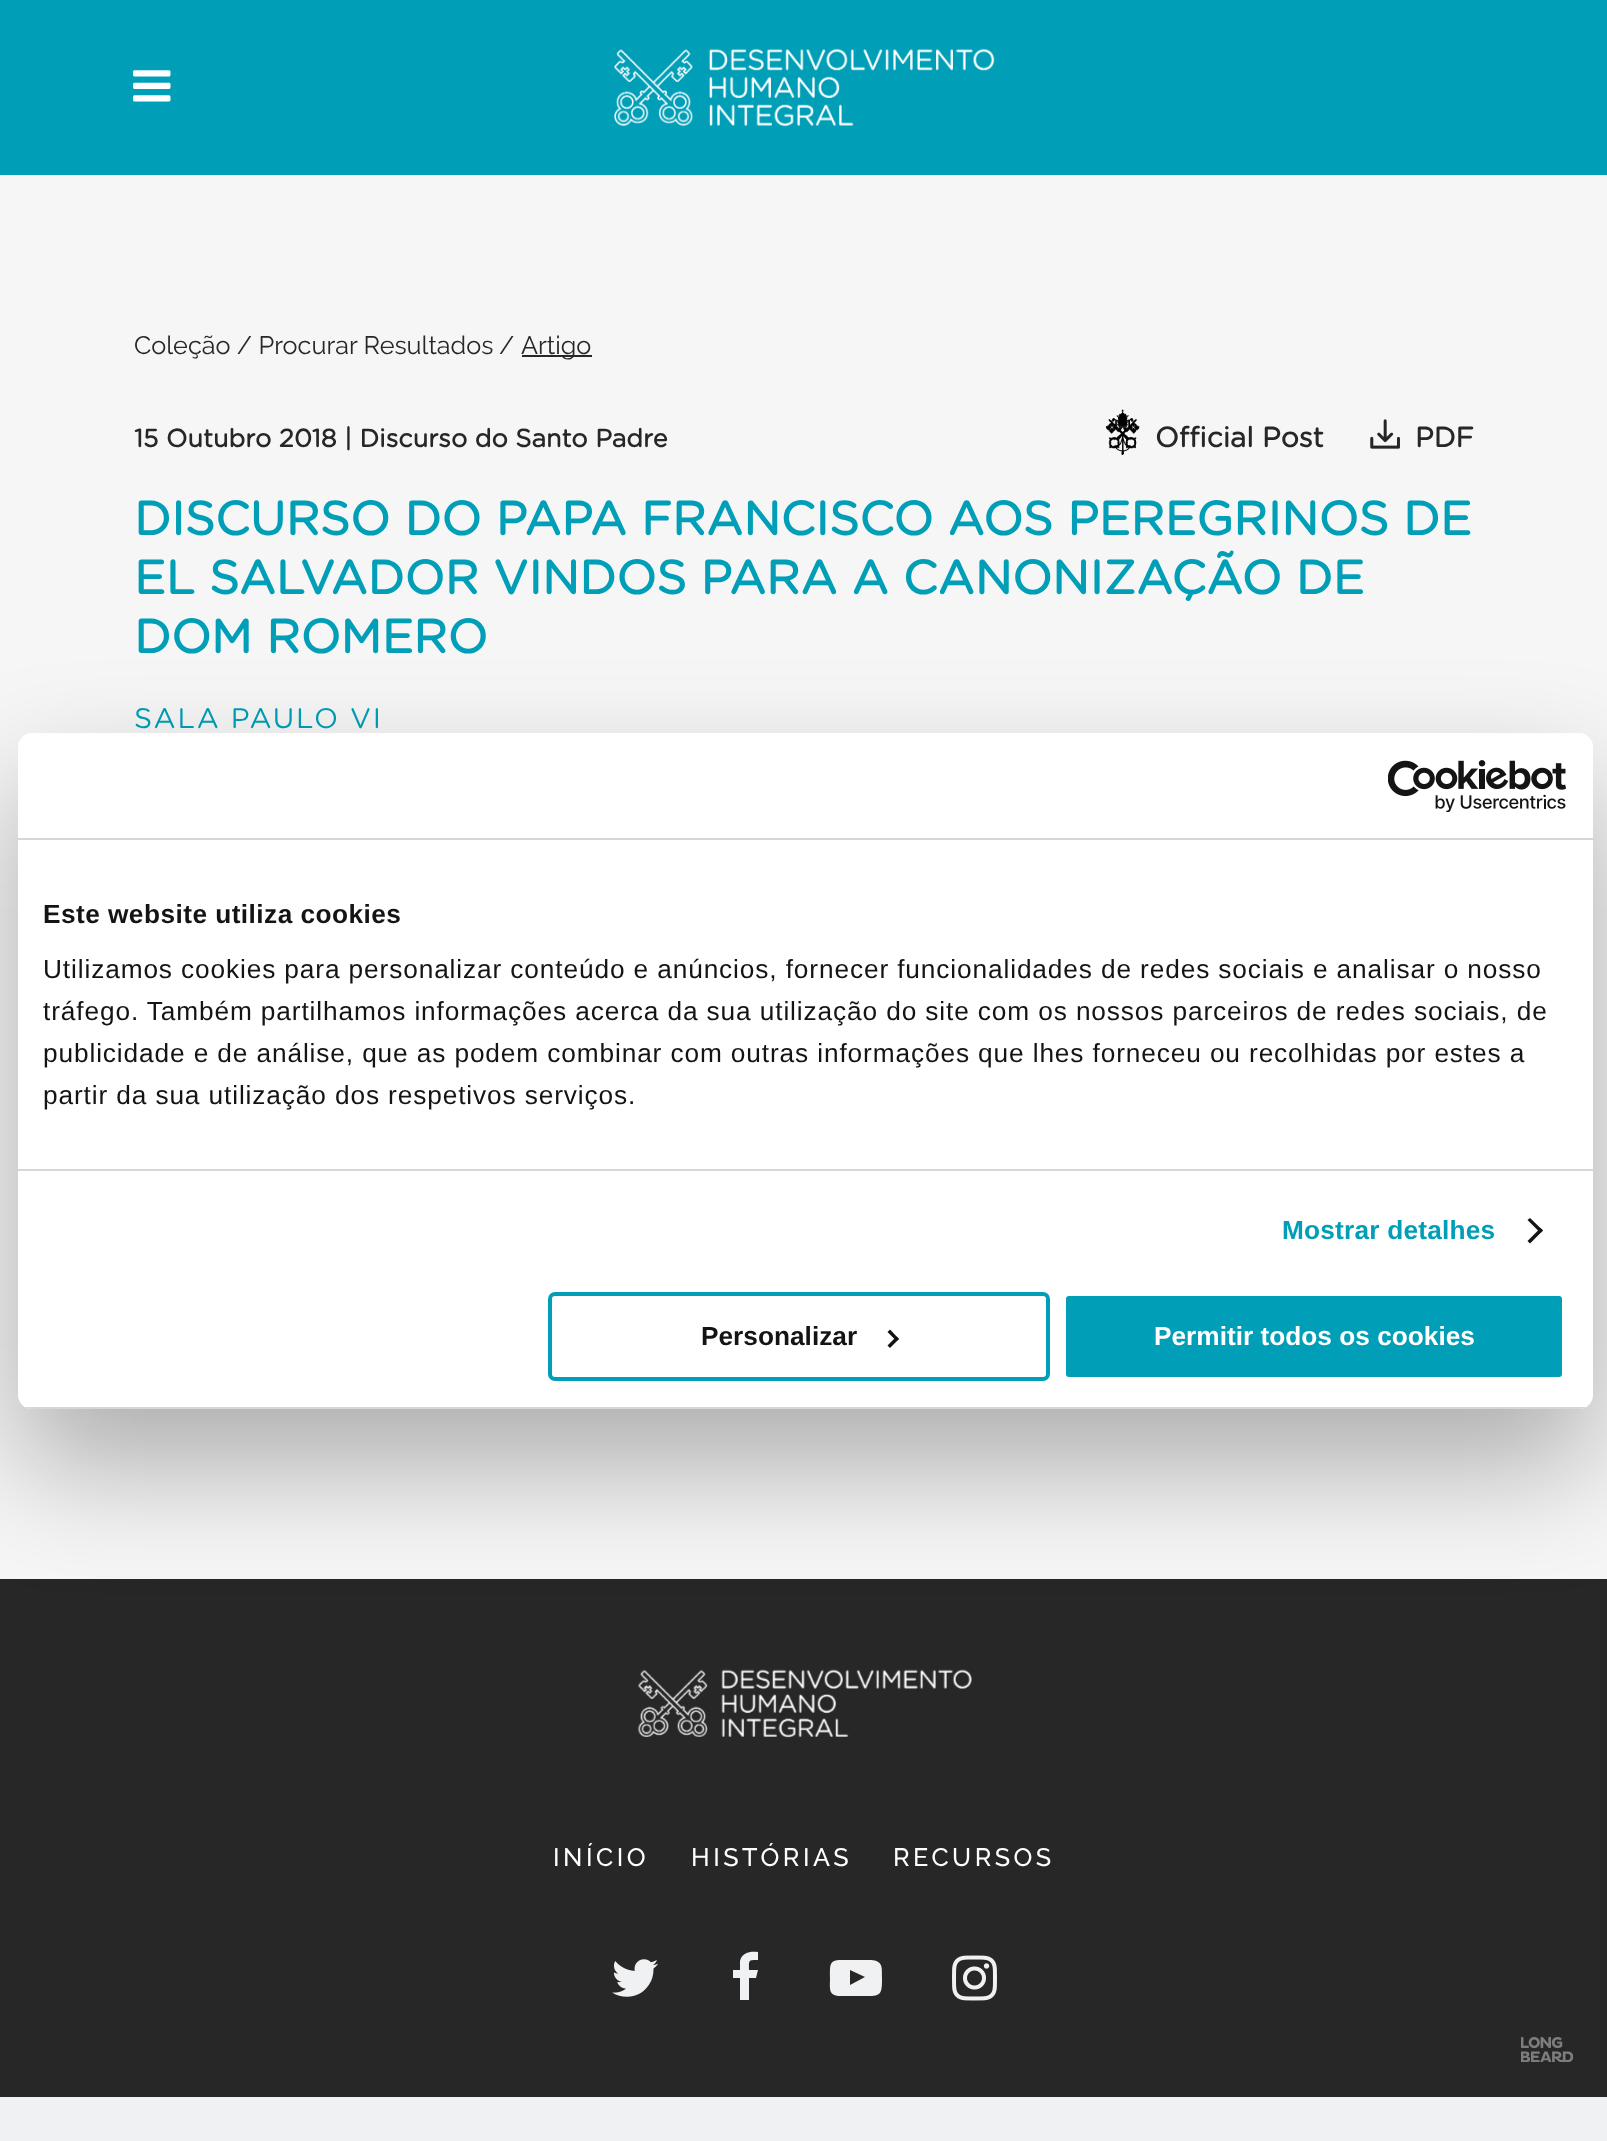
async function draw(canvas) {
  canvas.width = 1607
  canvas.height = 2141
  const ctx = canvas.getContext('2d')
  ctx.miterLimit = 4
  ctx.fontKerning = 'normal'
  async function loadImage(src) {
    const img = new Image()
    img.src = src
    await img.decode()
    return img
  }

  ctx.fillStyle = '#eff1f3'
  ctx.fillRect(0, 0, 1607, 2141)
  ctx.fillStyle = '#f6f6f6'
  ctx.fillRect(0, 175, 1607, 1404)
  ctx.fillStyle = '#009fb7'
  ctx.fillRect(0, 0, 1607, 175)
  ctx.drawImage(await loadImage('image0.png'), 133, 70, 38, 32)
  ctx.drawImage(await loadImage('image1.png'), 614, 48, 381, 79)
  ctx.font = '100 25.2px Raleway'
  ctx.fillStyle = '#272727'
  ctx.fillText('Coleção / Procurar Resultados', 134, 354)
  ctx.fillText('/', 499, 354)
  ctx.fillRect(522, 355, 70, 2)
  ctx.fillText('Artigo', 521, 354)
  ctx.font = 'bold 25.2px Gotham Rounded'
  ctx.fillText('15 Outubro 2018 | Discurso do Santo Padre', 134, 447)
  ctx.drawImage(await loadImage('image2.png'), 1106, 409, 34, 46)
  ctx.font = 'bold 28px Gotham Rounded'
  ctx.fillText('Official Post', 1155, 447)
  ctx.drawImage(await loadImage('image3.png'), 1370, 419, 30, 30)
  ctx.fillText('PDF', 1415, 447)
  ctx.font = 'bold 47.25px Gotham Rounded'
  ctx.fillStyle = '#009fb7'
  ctx.fillText('DISCURSO DO PAPA FRANCISCO AOS PEREGRINOS DE', 134, 535)
  ctx.fillText('EL SALVADOR VINDOS PARA A CANONIZAÇÃO DE', 134, 594)
  ctx.fillText('DOM ROMERO', 134, 653)
  ctx.letterSpacing = '1.75px'
  ctx.font = '28.25px Gotham Rounded'
  ctx.fillText('SALA PAULO VI', 134, 728)
  ctx.fillStyle = '#272727'
  ctx.fillRect(0, 1579, 1607, 518)
  ctx.drawImage(await loadImage('image4.png'), 637, 1669, 335, 69)
  ctx.letterSpacing = '3.5px'
  ctx.font = '100 25.2px "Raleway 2"'
  ctx.fillStyle = '#fff'
  ctx.fillText('INÍCIO', 553, 1866)
  ctx.fillText('HISTÓRIAS', 691, 1866)
  ctx.fillText('RECURSOS', 893, 1866)
  ctx.drawImage(await loadImage('image5.png'), 612, 1959, 46, 38)
  ctx.fillStyle = '#eff1f3'
  ctx.beginPath()
  ctx.moveTo(758, 1952)
  ctx.lineTo(758, 1960)
  ctx.bezierCurveTo(748, 1960, 749, 1960, 749, 1970)
  ctx.lineTo(758, 1970)
  ctx.lineTo(756, 1978)
  ctx.lineTo(749, 1978)
  ctx.lineTo(749, 2000)
  ctx.lineTo(740, 2000)
  ctx.lineTo(740, 1978)
  ctx.lineTo(733, 1978)
  ctx.lineTo(733, 1970)
  ctx.lineTo(740, 1970)
  ctx.lineTo(740, 1961)
  ctx.bezierCurveTo(742, 1952, 751, 1951, 758, 1952)
  ctx.closePath()
  ctx.fill()
  ctx.beginPath()
  ctx.moveTo(850, 1985)
  ctx.lineTo(865, 1977)
  ctx.lineTo(850, 1970)
  ctx.closePath()
  ctx.moveTo(856, 1960)
  ctx.lineTo(871, 1960)
  ctx.bezierCurveTo(883, 1961, 882, 1967, 882, 1978)
  ctx.bezierCurveTo(882, 1991, 882, 1996, 870, 1996)
  ctx.lineTo(841, 1996)
  ctx.bezierCurveTo(828, 1996, 830, 1989, 830, 1978)
  ctx.bezierCurveTo(830, 1965, 829, 1960, 841, 1960)
  ctx.closePath()
  ctx.fill()
  ctx.drawImage(await loadImage('image6.png'), 952, 1955, 45, 46)
  ctx.drawImage(await loadImage('image7.png'), 1521, 2037, 52, 25)
  ctx.fillStyle = '#0000004d'
  ctx.filter = 'blur(59.5px)'
  ctx.beginPath()
  ctx.roundRect(18, 789, 1575, 676, 14)
  ctx.fill()
  ctx.filter = 'none'
  ctx.fillStyle = '#fff'
  ctx.beginPath()
  ctx.roundRect(18, 733, 1575, 676, 14)
  ctx.fill()
  ctx.fillStyle = '#d6d6d6'
  ctx.fillRect(18, 838, 1575, 2)
  ctx.drawImage(await loadImage('image8.png'), 1388, 760, 178, 52)
  ctx.fillRect(18, 1169, 1575, 2)
  ctx.letterSpacing = '0.45px'
  ctx.font = 'bold 26.25px Liberation Sans'
  ctx.fillStyle = '#141414'
  ctx.fillText('Este website utiliza cookies', 43, 923)
  ctx.letterSpacing = '0.88px'
  ctx.font = '26.25px Liberation Sans'
  ctx.fillText('Utilizamos cookies para personalizar conteúdo e anúncios, fornecer funcionalidades de redes sociais e analisar o nosso', 43, 978)
  ctx.fillText('tráfego. Também partilhamos informações acerca da sua utilização do site com os nossos parceiros de redes sociais, de', 43, 1020)
  ctx.fillText('publicidade e de análise, que as podem combinar com outras informações que lhes forneceu ou recolhidas por estes a', 43, 1062)
  ctx.fillText('partir da sua utilização dos respetivos serviços.', 43, 1104)
  ctx.letterSpacing = '0.2px'
  ctx.font = 'bold 26.25px Liberation Sans'
  ctx.fillStyle = '#009fb7'
  ctx.fillText('Mostrar detalhes', 1282, 1239)
  ctx.fillStyle = '#141414'
  ctx.beginPath()
  ctx.moveTo(1530, 1218)
  ctx.lineTo(1543, 1230.5)
  ctx.lineTo(1540.5, 1233)
  ctx.lineTo(1527.5, 1220)
  ctx.closePath()
  ctx.fill()
  ctx.beginPath()
  ctx.moveTo(1540.5, 1228)
  ctx.lineTo(1543, 1230.5)
  ctx.lineTo(1530, 1243.5)
  ctx.lineTo(1527.5, 1241)
  ctx.closePath()
  ctx.fill()
  ctx.save()
  ctx.beginPath()
  ctx.roundRect(18, 733, 1575, 676, 14)
  ctx.clip()
  ctx.fillStyle = '#d6d6d6'
  ctx.fillRect(18, 1407, 1575, 2)
  ctx.restore()
  ctx.beginPath()
  ctx.roundRect(550, 1294, 498, 85, 5)
  ctx.strokeStyle = '#009fb7'
  ctx.lineWidth = 4
  ctx.stroke()
  ctx.letterSpacing = '0px'
  ctx.fillText('Personalizar', 701, 1345)
  ctx.beginPath()
  ctx.moveTo(890, 1329.5)
  ctx.lineTo(899, 1339)
  ctx.lineTo(896.5, 1341)
  ctx.lineTo(887.5, 1332)
  ctx.closePath()
  ctx.fill()
  ctx.beginPath()
  ctx.moveTo(896.5, 1336.5)
  ctx.lineTo(899, 1339)
  ctx.lineTo(890, 1348)
  ctx.lineTo(887.5, 1345.5)
  ctx.closePath()
  ctx.fill()
  ctx.fillStyle = '#009fb7'
  ctx.beginPath()
  ctx.roundRect(1064, 1294, 500, 85, 5)
  ctx.fill()
  ctx.strokeStyle = '#fff'
  ctx.stroke()
  ctx.fillStyle = '#fff'
  ctx.fillText('Permitir todos os cookies', 1154, 1345)
}

draw(document.querySelector('canvas'))
